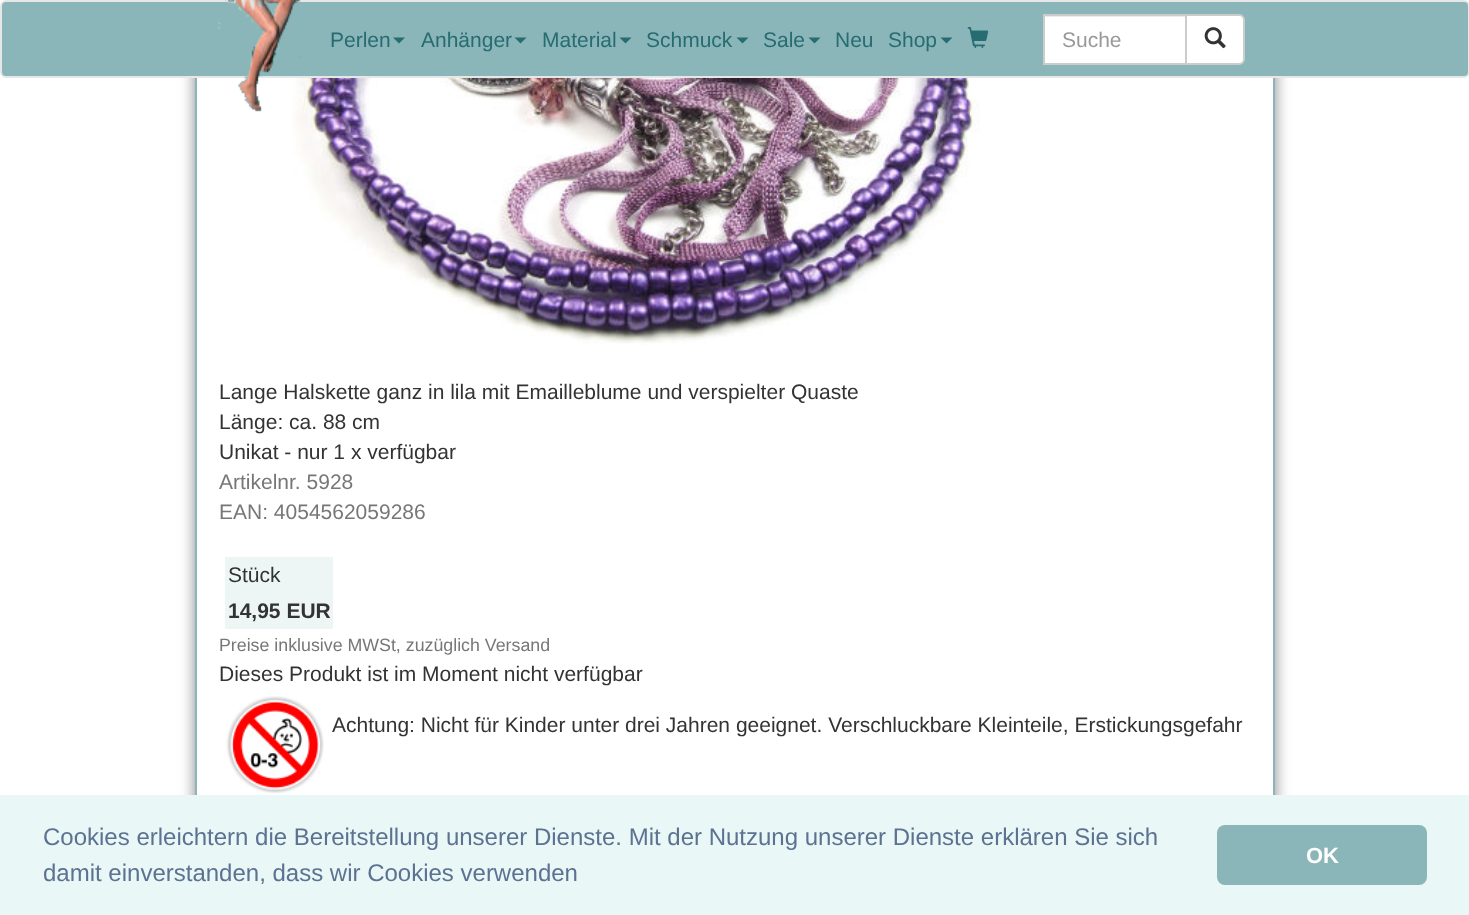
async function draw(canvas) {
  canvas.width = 1469
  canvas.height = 915
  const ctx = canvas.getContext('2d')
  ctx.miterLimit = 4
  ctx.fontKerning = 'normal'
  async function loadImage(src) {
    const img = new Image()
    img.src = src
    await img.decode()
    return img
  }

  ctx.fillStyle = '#fff'
  ctx.fillRect(0, 0, 1469, 915)
  ctx.fillStyle = '#888'
  ctx.filter = 'blur(7.5px)'
  ctx.beginPath()
  ctx.roundRect(195, -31, 1080, 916, 8)
  ctx.fill()
  ctx.filter = 'none'
  ctx.fillStyle = '#fff'
  ctx.fillRect(197, 78, 1076, 717)
  ctx.strokeStyle = '#8ab6b9'
  ctx.lineWidth = 2
  ctx.strokeRect(196, -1, 1078, 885)
  ctx.fillStyle = '#8ab6b9'
  ctx.beginPath()
  ctx.roundRect(1, 1, 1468, 76, 5)
  ctx.fill()
  ctx.strokeStyle = '#e7e7e7'
  ctx.stroke()
  ctx.drawImage(await loadImage('image3.png'), 292, 78, 688, 267)
  ctx.drawImage(await loadImage('image0.png'), 217, 0, 84, 112)
  ctx.font = '21px Liberation Sans'
  ctx.fillStyle = '#276c71'
  ctx.fillText('Perlen', 330, 47)
  ctx.beginPath()
  ctx.moveTo(393, 37.5)
  ctx.lineTo(405, 37.5)
  ctx.lineTo(399, 43.5)
  ctx.closePath()
  ctx.fill()
  ctx.fillText('Anhänger', 421, 47)
  ctx.beginPath()
  ctx.moveTo(514.5, 37.5)
  ctx.lineTo(526.5, 37.5)
  ctx.lineTo(520.5, 43.5)
  ctx.closePath()
  ctx.fill()
  ctx.fillText('Material', 542, 47)
  ctx.beginPath()
  ctx.moveTo(619.5, 37.5)
  ctx.lineTo(631.5, 37.5)
  ctx.lineTo(625.5, 43.5)
  ctx.closePath()
  ctx.fill()
  ctx.fillText('Schmuck', 646, 47)
  ctx.beginPath()
  ctx.moveTo(736.5, 37.5)
  ctx.lineTo(748.5, 37.5)
  ctx.lineTo(742.5, 43.5)
  ctx.closePath()
  ctx.fill()
  ctx.fillText('Sale', 763, 47)
  ctx.beginPath()
  ctx.moveTo(808.5, 37.5)
  ctx.lineTo(820.5, 37.5)
  ctx.lineTo(814.5, 43.5)
  ctx.closePath()
  ctx.fill()
  ctx.fillText('Neu', 835, 47)
  ctx.fillText('Shop', 888, 47)
  ctx.beginPath()
  ctx.moveTo(940.5, 37.5)
  ctx.lineTo(952.5, 37.5)
  ctx.lineTo(946.5, 43.5)
  ctx.closePath()
  ctx.fill()
  ctx.drawImage(await loadImage('image1.png'), 967, 27, 22, 21)
  ctx.fillStyle = '#fff'
  ctx.fillRect(1045, 17, 140, 46)
  ctx.fillStyle = '#ececec'
  ctx.fillRect(1044, 16, 141, 1)
  ctx.strokeStyle = '#ccc'
  ctx.strokeRect(1044, 15, 142, 49)
  ctx.fillStyle = '#999'
  ctx.fillText('Suche', 1062, 47)
  ctx.fillStyle = '#fff'
  ctx.beginPath()
  ctx.roundRect(1186, 15, 58, 49, [0, 5, 5, 0])
  ctx.fill()
  ctx.stroke()
  ctx.drawImage(await loadImage('image2.png'), 1204, 27, 22, 22)
  ctx.fillStyle = '#333'
  ctx.fillText('Lange Halskette ganz in lila mit Emailleblume und verspielter Quaste', 219, 399)
  ctx.fillText('Länge: ca. 88 cm', 219, 429)
  ctx.fillText('Unikat - nur 1 x verfügbar', 219, 459)
  ctx.fillStyle = '#777'
  ctx.fillText('Artikelnr. 5928', 219, 489)
  ctx.fillText('EAN: 4054562059286', 219, 519)
  ctx.fillStyle = '#edf5f5'
  ctx.fillRect(225, 557, 108, 72)
  ctx.fillStyle = '#333'
  ctx.fillText('Stück', 228, 582)
  ctx.font = 'bold 21px Liberation Sans'
  ctx.fillText('14,95 EUR', 228, 618)
  ctx.font = '17.8px Liberation Sans'
  ctx.fillStyle = '#777'
  ctx.fillText('Preise inklusive MWSt, zuzüglich Versand', 219, 651)
  ctx.font = '21px Liberation Sans'
  ctx.fillStyle = '#333'
  ctx.fillText('Dieses Produkt ist im Moment nicht verfügbar', 219, 681)
  ctx.drawImage(await loadImage('image4.png'), 226, 696, 98, 98)
  ctx.fillText('Achtung: Nicht für Kinder unter drei Jahren geeignet. Verschluckbare Kleinteile, Erstickungsgefahr', 332, 732)
  ctx.fillStyle = '#eaf7f7'
  ctx.fillRect(0, 795, 1469, 120)
  ctx.font = '24px Liberation Sans'
  ctx.fillStyle = '#5c7291'
  ctx.fillText('Cookies erleichtern die Bereitstellung unserer Dienste. Mit der Nutzung unserer Dienste erklären Sie sich', 43, 845)
  ctx.fillText('damit einverstanden, dass wir Cookies verwenden', 43, 881)
  ctx.fillStyle = '#8ab6b9'
  ctx.beginPath()
  ctx.roundRect(1217, 825, 210, 60, 8)
  ctx.fill()
  ctx.font = 'bold 22px Liberation Sans'
  ctx.fillStyle = '#fff'
  ctx.fillText('OK', 1306, 863)
}

draw(document.querySelector('canvas'))
